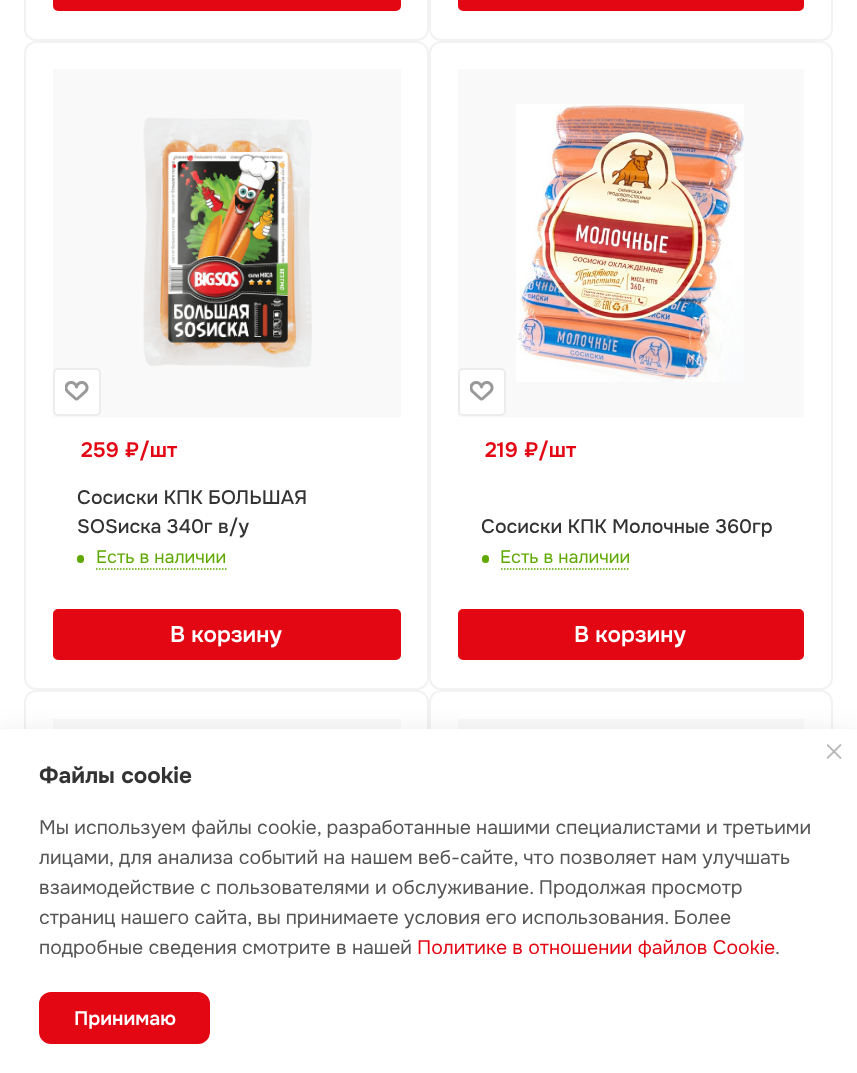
async function draw(canvas) {
  canvas.width = 857
  canvas.height = 1073
  const ctx = canvas.getContext('2d')
  ctx.miterLimit = 4
  ctx.fontKerning = 'normal'
  async function loadImage(src) {
    const img = new Image()
    img.src = src
    await img.decode()
    return img
  }

  ctx.fillStyle = '#fff'
  ctx.fillRect(0, 0, 857, 1073)
  ctx.beginPath()
  ctx.roundRect(25, -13, 403, 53, 11)
  ctx.strokeStyle = '#f2f2f2'
  ctx.lineWidth = 2
  ctx.stroke()
  ctx.fillStyle = '#e30613'
  ctx.beginPath()
  ctx.roundRect(54, -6, 346, 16, 4)
  ctx.fill()
  ctx.strokeStyle = '#e30613'
  ctx.stroke()
  ctx.beginPath()
  ctx.roundRect(430, -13, 402, 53, 11)
  ctx.strokeStyle = '#f2f2f2'
  ctx.stroke()
  ctx.beginPath()
  ctx.roundRect(459, -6, 344, 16, 4)
  ctx.fill()
  ctx.strokeStyle = '#e30613'
  ctx.stroke()
  ctx.fillStyle = '#f9f9f9'
  ctx.fillRect(53, 69, 348, 348)
  ctx.drawImage(await loadImage('image0.png'), 143, 117, 169, 251)
  ctx.fillStyle = '#fff'
  ctx.beginPath()
  ctx.roundRect(54, 369, 46, 46, 4)
  ctx.fill()
  ctx.strokeStyle = '#ececec'
  ctx.stroke()
  ctx.drawImage(await loadImage('image1.png'), 65, 381, 24, 20)
  ctx.beginPath()
  ctx.roundRect(25, 42, 403, 647, 11)
  ctx.strokeStyle = '#f2f2f2'
  ctx.stroke()
  ctx.font = '600 21px Onest'
  ctx.fillStyle = '#e30613'
  ctx.fillText('259 ₽/шт', 81, 457)
  ctx.font = '500 19.5px Onest'
  ctx.fillStyle = '#333'
  ctx.fillText('Сосиски КПК БОЛЬШАЯ', 77, 504)
  ctx.fillText('SOSиска 340г в/у', 77, 533)
  ctx.fillStyle = '#5fa800'
  ctx.beginPath()
  ctx.roundRect(77, 555, 7, 8, 3.5)
  ctx.fill()
  ctx.beginPath()
  ctx.moveTo(96, 569)
  ctx.lineTo(226.5, 569)
  ctx.strokeStyle = '#5fa800'
  ctx.lineWidth = 1.5
  ctx.setLineDash([1.5, 1.5])
  ctx.stroke()
  ctx.font = '18px Onest'
  ctx.fillText('Есть в наличии', 96, 563)
  ctx.fillStyle = '#e30613'
  ctx.beginPath()
  ctx.roundRect(54, 610, 346, 49, 4)
  ctx.fill()
  ctx.strokeStyle = '#e30613'
  ctx.lineWidth = 2
  ctx.setLineDash([])
  ctx.stroke()
  ctx.font = '600 22.5px Onest'
  ctx.fillStyle = '#fff'
  ctx.fillText('В корзину', 170, 642)
  ctx.fillStyle = '#f9f9f9'
  ctx.fillRect(458, 69, 346, 348)
  ctx.drawImage(await loadImage('image2.png'), 516, 104, 228, 278)
  ctx.fillStyle = '#fff'
  ctx.beginPath()
  ctx.roundRect(459, 369, 46, 46, 4)
  ctx.fill()
  ctx.strokeStyle = '#ececec'
  ctx.stroke()
  ctx.drawImage(await loadImage('image1.png'), 470, 381, 24, 20)
  ctx.beginPath()
  ctx.roundRect(430, 42, 402, 647, 11)
  ctx.strokeStyle = '#f2f2f2'
  ctx.stroke()
  ctx.font = '600 21px Onest'
  ctx.fillStyle = '#e30613'
  ctx.fillText('219 ₽/шт', 485, 457)
  ctx.save()
  ctx.beginPath()
  ctx.rect(482, 513, 298, 29)
  ctx.clip()
  ctx.font = '500 19.5px Onest'
  ctx.fillStyle = '#333'
  ctx.fillText('Сосиски КПК Молочные 360гр', 481, 533)
  ctx.restore()
  ctx.fillStyle = '#5fa800'
  ctx.beginPath()
  ctx.roundRect(482, 555, 7, 8, 3.5)
  ctx.fill()
  ctx.beginPath()
  ctx.moveTo(501, 569)
  ctx.lineTo(630, 569)
  ctx.strokeStyle = '#5fa800'
  ctx.lineWidth = 1.5
  ctx.setLineDash([1.5, 1.5])
  ctx.stroke()
  ctx.font = '18px Onest'
  ctx.fillText('Есть в наличии', 500, 563)
  ctx.fillStyle = '#e30613'
  ctx.beginPath()
  ctx.roundRect(459, 610, 344, 49, 4)
  ctx.fill()
  ctx.strokeStyle = '#e30613'
  ctx.lineWidth = 2
  ctx.setLineDash([])
  ctx.stroke()
  ctx.font = '600 22.5px Onest'
  ctx.fillStyle = '#fff'
  ctx.fillText('В корзину', 574, 642)
  ctx.fillStyle = '#f9f9f9'
  ctx.fillRect(53, 719, 348, 10)
  ctx.beginPath()
  ctx.roundRect(25, 691, 403, 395, 11)
  ctx.strokeStyle = '#f2f2f2'
  ctx.stroke()
  ctx.fillRect(458, 719, 346, 10)
  ctx.beginPath()
  ctx.roundRect(430, 691, 402, 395, 11)
  ctx.stroke()
  ctx.fillStyle = '#0000001f'
  ctx.filter = 'blur(15px)'
  ctx.beginPath()
  ctx.rect(0, 737, 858, 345)
  ctx.fill()
  ctx.filter = 'none'
  ctx.fillStyle = '#fff'
  ctx.fillRect(0, 729, 857, 344)
  ctx.drawImage(await loadImage('image3.png'), 827, 744, 15, 15)
  ctx.font = 'bold 22.5px Onest'
  ctx.fillStyle = '#333'
  ctx.fillText('Файлы cookie', 39, 783)
  ctx.font = '19.5px Onest'
  ctx.fillStyle = '#555'
  ctx.fillText('Мы используем файлы cookie, разработанные нашими специалистами и третьими', 39, 834)
  ctx.fillText('лицами, для анализа событий на нашем веб-сайте, что позволяет нам улучшать', 39, 864)
  ctx.fillText('взаимодействие с пользователями и обслуживание. Продолжая просмотр', 39, 894)
  ctx.wordSpacing = '-0.25px'
  ctx.fillText('страниц нашего сайта, вы принимаете условия его использования. Более', 39, 924)
  ctx.wordSpacing = '0px'
  ctx.fillText('подробные сведения смотрите в нашей', 39, 954)
  ctx.fillStyle = '#e30613'
  ctx.fillText('Политике в отношении файлов Cookie', 417, 954)
  ctx.fillStyle = '#555'
  ctx.fillText('.', 775, 954)
  ctx.fillStyle = '#e30613'
  ctx.beginPath()
  ctx.roundRect(40, 993, 169, 50, 11)
  ctx.fill()
  ctx.strokeStyle = '#e30613'
  ctx.stroke()
  ctx.font = '600 19.5px Onest'
  ctx.fillStyle = '#fff'
  ctx.fillText('Принимаю', 74, 1025)
}

draw(document.querySelector('canvas'))
